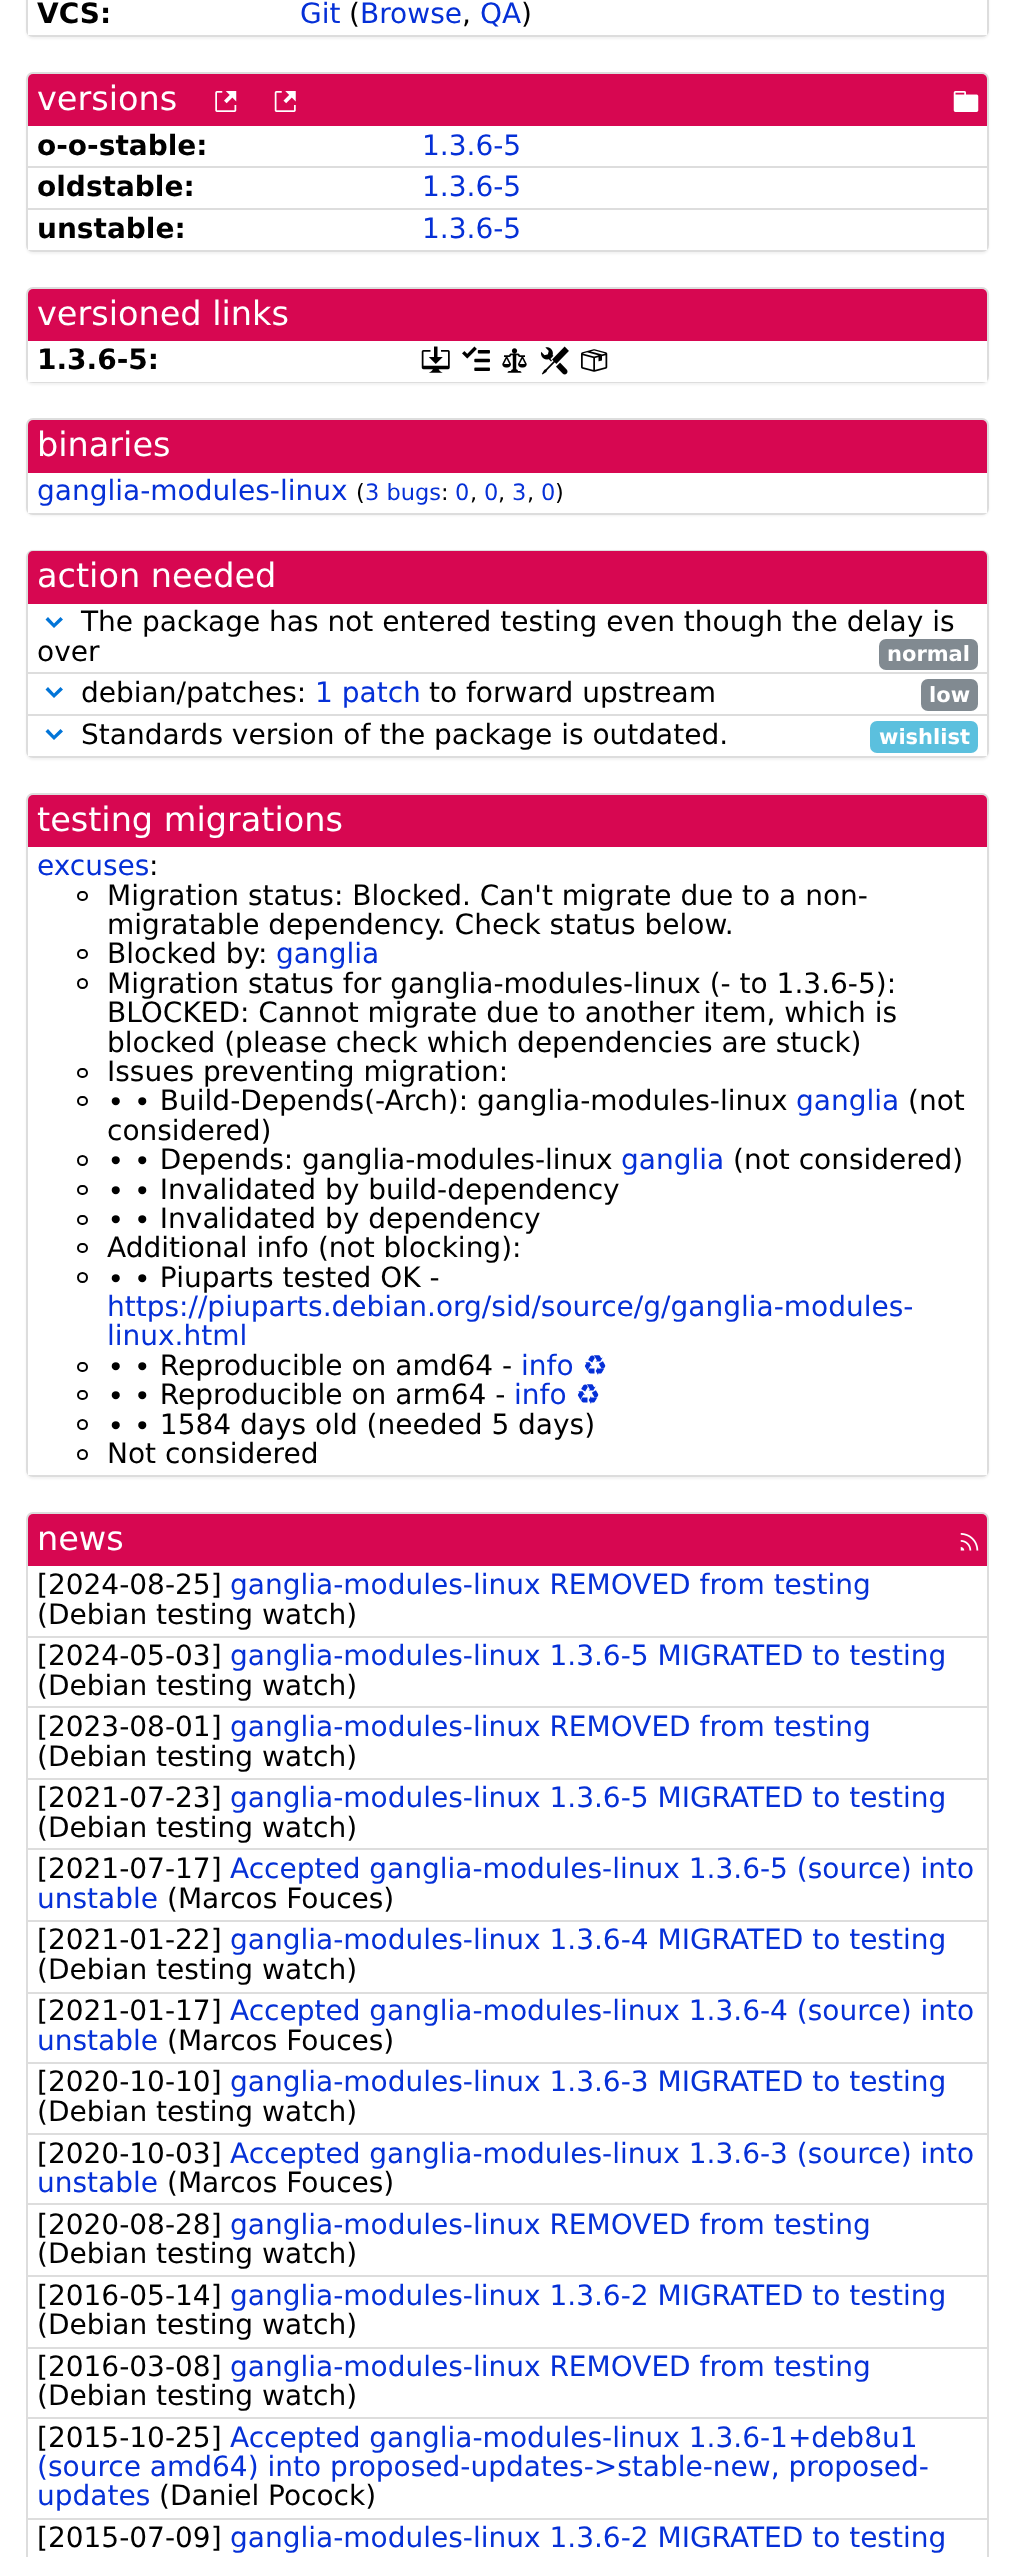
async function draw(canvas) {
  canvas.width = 1015
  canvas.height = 2557
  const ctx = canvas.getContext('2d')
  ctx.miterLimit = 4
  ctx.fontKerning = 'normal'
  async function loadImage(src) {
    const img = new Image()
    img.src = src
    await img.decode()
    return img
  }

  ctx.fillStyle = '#fff'
  ctx.fillRect(0, 0, 1015, 2557)
  ctx.fillStyle = '#0000000d'
  ctx.filter = 'blur(1px)'
  ctx.beginPath()
  ctx.roundRect(26, -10, 963, 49, 7)
  ctx.fill()
  ctx.filter = 'none'
  ctx.beginPath()
  ctx.roundRect(27, -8, 961, 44, 6)
  ctx.strokeStyle = '#ddd'
  ctx.lineWidth = 2
  ctx.stroke()
  ctx.fillStyle = '#fff'
  ctx.fillRect(28, 0, 959, 35)
  ctx.font = 'bold 28px DejaVu Sans'
  ctx.fillStyle = '#000'
  ctx.fillText('VCS:', 37, 23)
  ctx.font = '28px DejaVu Sans'
  ctx.fillStyle = '#0530d7'
  ctx.fillText('Git', 300, 23)
  ctx.fillStyle = '#000'
  ctx.fillText('(', 349, 23)
  ctx.fillStyle = '#0530d7'
  ctx.fillText('Browse', 360, 23)
  ctx.fillStyle = '#000'
  ctx.fillText(',', 462, 23)
  ctx.fillStyle = '#0530d7'
  ctx.fillText('QA', 480, 23)
  ctx.fillStyle = '#000'
  ctx.fillText(')', 521, 23)
  ctx.fillStyle = '#0000000d'
  ctx.filter = 'blur(1px)'
  ctx.beginPath()
  ctx.roundRect(26, 74, 963, 180, 7)
  ctx.fill()
  ctx.filter = 'none'
  ctx.beginPath()
  ctx.roundRect(27, 73, 961, 178, 6)
  ctx.stroke()
  ctx.fillStyle = '#d70751'
  ctx.beginPath()
  ctx.roundRect(28, 74, 959, 54, [5, 5, 0, 0])
  ctx.fill()
  ctx.font = '33.5px DejaVu Sans'
  ctx.fillStyle = '#fff'
  ctx.fillText('versions', 37, 110)
  ctx.drawImage(await loadImage('image0.png'), 215, 91, 22, 21)
  ctx.drawImage(await loadImage('image1.png'), 274, 91, 22, 21)
  ctx.drawImage(await loadImage('image2.png'), 953, 91, 26, 21)
  ctx.fillRect(28, 126, 959, 124)
  ctx.fillStyle = '#ddd'
  ctx.fillRect(28, 166, 959, 2)
  ctx.font = 'bold 28px DejaVu Sans'
  ctx.fillStyle = '#000'
  ctx.fillText('o-o-stable:', 37, 155)
  ctx.font = '28px DejaVu Sans'
  ctx.fillStyle = '#0530d7'
  ctx.fillText('1.3.6-5', 422, 155)
  ctx.font = 'bold 28px DejaVu Sans'
  ctx.fillStyle = '#000'
  ctx.fillText('oldstable:', 37, 196)
  ctx.font = '28px DejaVu Sans'
  ctx.fillStyle = '#0530d7'
  ctx.fillText('1.3.6-5', 422, 196)
  ctx.fillStyle = '#ddd'
  ctx.fillRect(28, 208, 959, 2)
  ctx.font = 'bold 28px DejaVu Sans'
  ctx.fillStyle = '#000'
  ctx.fillText('unstable:', 37, 238)
  ctx.font = '28px DejaVu Sans'
  ctx.fillStyle = '#0530d7'
  ctx.fillText('1.3.6-5', 422, 238)
  ctx.fillStyle = '#0000000d'
  ctx.filter = 'blur(1px)'
  ctx.beginPath()
  ctx.roundRect(26, 289, 963, 96, 7)
  ctx.fill()
  ctx.filter = 'none'
  ctx.beginPath()
  ctx.roundRect(27, 288, 961, 94, 6)
  ctx.stroke()
  ctx.fillStyle = '#d70751'
  ctx.beginPath()
  ctx.roundRect(28, 289, 959, 54, [5, 5, 0, 0])
  ctx.fill()
  ctx.font = '33.5px DejaVu Sans'
  ctx.fillStyle = '#fff'
  ctx.fillText('versioned links', 37, 325)
  ctx.fillRect(28, 341, 959, 41)
  ctx.font = 'bold 28px DejaVu Sans'
  ctx.fillStyle = '#000'
  ctx.fillText('1.3.6-5:', 37, 369)
  ctx.drawImage(await loadImage('image3.png'), 421, 346, 29, 27)
  ctx.drawImage(await loadImage('image4.png'), 462, 346, 28, 25)
  ctx.drawImage(await loadImage('image5.png'), 502, 348, 25, 25)
  ctx.drawImage(await loadImage('image6.png'), 540, 346, 29, 29)
  ctx.drawImage(await loadImage('image7.png'), 581, 349, 27, 23)
  ctx.fillStyle = '#0000000d'
  ctx.filter = 'blur(1px)'
  ctx.beginPath()
  ctx.roundRect(26, 420, 963, 96, 7)
  ctx.fill()
  ctx.filter = 'none'
  ctx.beginPath()
  ctx.roundRect(27, 419, 961, 95, 6)
  ctx.stroke()
  ctx.fillStyle = '#d70751'
  ctx.beginPath()
  ctx.roundRect(28, 420, 959, 54, [5, 5, 0, 0])
  ctx.fill()
  ctx.font = '33.5px DejaVu Sans'
  ctx.fillStyle = '#fff'
  ctx.fillText('binaries', 37, 456)
  ctx.fillRect(28, 473, 959, 40)
  ctx.font = '28px DejaVu Sans'
  ctx.fillStyle = '#0530d7'
  ctx.fillText('ganglia-modules-linux', 37, 500)
  ctx.font = '22.5px DejaVu Sans'
  ctx.fillStyle = '#000'
  ctx.fillText('(', 356, 500)
  ctx.fillStyle = '#0530d7'
  ctx.fillText('3 bugs', 365, 500)
  ctx.fillStyle = '#000'
  ctx.fillText(':', 441, 500)
  ctx.fillStyle = '#0530d7'
  ctx.fillText('0', 455, 500)
  ctx.fillStyle = '#000'
  ctx.fillText(',', 470, 500)
  ctx.fillStyle = '#0530d7'
  ctx.fillText('0', 484, 500)
  ctx.fillStyle = '#000'
  ctx.fillText(',', 498, 500)
  ctx.fillStyle = '#0530d7'
  ctx.fillText('3', 512, 500)
  ctx.fillStyle = '#000'
  ctx.fillText(',', 527, 500)
  ctx.fillStyle = '#0530d7'
  ctx.fillText('0', 541, 500)
  ctx.fillStyle = '#000'
  ctx.fillText(')', 555, 500)
  ctx.fillStyle = '#0000000d'
  ctx.filter = 'blur(1px)'
  ctx.beginPath()
  ctx.roundRect(26, 551, 963, 209, 7)
  ctx.fill()
  ctx.filter = 'none'
  ctx.beginPath()
  ctx.roundRect(27, 551, 961, 206, 6)
  ctx.stroke()
  ctx.fillStyle = '#d70751'
  ctx.beginPath()
  ctx.roundRect(28, 551, 959, 55, [5, 5, 0, 0])
  ctx.fill()
  ctx.font = '33.5px DejaVu Sans'
  ctx.fillStyle = '#fff'
  ctx.fillText('action needed', 37, 587)
  ctx.fillRect(28, 604, 959, 152)
  ctx.fillStyle = '#ddd'
  ctx.fillRect(28, 672, 959, 2)
  ctx.fillStyle = '#0275d8'
  ctx.beginPath()
  ctx.moveTo(54, 628)
  ctx.lineTo(45.5, 619.5)
  ctx.lineTo(48, 617)
  ctx.lineTo(54, 623.5)
  ctx.lineTo(60.5, 617)
  ctx.lineTo(63, 619.5)
  ctx.closePath()
  ctx.fill()
  ctx.font = '28px DejaVu Sans'
  ctx.fillStyle = '#000'
  ctx.fillText('The package has not entered testing even though the delay is', 81, 631)
  ctx.fillText('over', 37, 661)
  ctx.fillStyle = '#818a91'
  ctx.beginPath()
  ctx.roundRect(879, 639, 99, 31, 7)
  ctx.fill()
  ctx.font = 'bold 21px DejaVu Sans'
  ctx.fillStyle = '#fff'
  ctx.fillText('normal', 887, 661)
  ctx.fillStyle = '#0275d8'
  ctx.beginPath()
  ctx.moveTo(54, 698)
  ctx.lineTo(45.5, 689.5)
  ctx.lineTo(48, 687)
  ctx.lineTo(54, 693.5)
  ctx.lineTo(60.5, 687)
  ctx.lineTo(63, 689.5)
  ctx.closePath()
  ctx.fill()
  ctx.font = '28px DejaVu Sans'
  ctx.fillStyle = '#000'
  ctx.fillText('debian/patches:', 81, 702)
  ctx.fillStyle = '#0530d7'
  ctx.fillText('1 patch', 315, 702)
  ctx.fillStyle = '#000'
  ctx.fillText('to forward upstream', 429, 702)
  ctx.fillStyle = '#818a91'
  ctx.beginPath()
  ctx.roundRect(921, 679, 57, 32, 7)
  ctx.fill()
  ctx.font = 'bold 21px DejaVu Sans'
  ctx.fillStyle = '#fff'
  ctx.fillText('low', 929, 702)
  ctx.fillStyle = '#ddd'
  ctx.fillRect(28, 714, 959, 2)
  ctx.fillStyle = '#0275d8'
  ctx.beginPath()
  ctx.moveTo(54, 740)
  ctx.lineTo(45.5, 731.5)
  ctx.lineTo(48, 729)
  ctx.lineTo(54, 735.5)
  ctx.lineTo(60.5, 729)
  ctx.lineTo(63, 731.5)
  ctx.closePath()
  ctx.fill()
  ctx.font = '28px DejaVu Sans'
  ctx.fillStyle = '#000'
  ctx.fillText('Standards version of the package is outdated.', 81, 744)
  ctx.fillStyle = '#5bc0de'
  ctx.beginPath()
  ctx.roundRect(870, 721, 108, 32, 7)
  ctx.fill()
  ctx.font = 'bold 21px DejaVu Sans'
  ctx.fillStyle = '#fff'
  ctx.fillText('wishlist', 879, 744)
  ctx.fillStyle = '#0000000d'
  ctx.filter = 'blur(1px)'
  ctx.beginPath()
  ctx.roundRect(26, 795, 963, 684, 7)
  ctx.fill()
  ctx.filter = 'none'
  ctx.beginPath()
  ctx.roundRect(27, 794, 961, 682, 6)
  ctx.stroke()
  ctx.fillStyle = '#d70751'
  ctx.beginPath()
  ctx.roundRect(28, 795, 959, 54, [5, 5, 0, 0])
  ctx.fill()
  ctx.font = '33.5px DejaVu Sans'
  ctx.fillStyle = '#fff'
  ctx.fillText('testing migrations', 37, 831)
  ctx.fillRect(28, 847, 959, 628)
  ctx.font = '28px DejaVu Sans'
  ctx.fillStyle = '#0530d7'
  ctx.fillText('excuses', 37, 875)
  ctx.fillStyle = '#000'
  ctx.fillText(':', 149, 875)
  ctx.beginPath()
  ctx.roundRect(78, 892, 9, 8, 4)
  ctx.strokeStyle = '#000'
  ctx.stroke()
  ctx.fillText('Migration status: Blocked. Can\'t migrate due to a non-', 107, 905)
  ctx.fillText('migratable dependency. Check status below.', 107, 934)
  ctx.beginPath()
  ctx.roundRect(78, 950, 9, 8, 4)
  ctx.stroke()
  ctx.fillText('Blocked by:', 107, 963)
  ctx.fillStyle = '#0530d7'
  ctx.fillText('ganglia', 276, 963)
  ctx.beginPath()
  ctx.arc(82.5, 983.5, 4.5, 0, 2 * Math.PI)
  ctx.stroke()
  ctx.fillStyle = '#000'
  ctx.fillText('Migration status for ganglia-modules-linux (- to 1.3.6-5):', 107, 993)
  ctx.fillText('BLOCKED: Cannot migrate due to another item, which is', 107, 1022)
  ctx.fillText('blocked (please check which dependencies are stuck)', 107, 1052)
  ctx.beginPath()
  ctx.roundRect(78, 1069, 9, 8, 4)
  ctx.stroke()
  ctx.fillText('Issues preventing migration:', 107, 1081)
  ctx.beginPath()
  ctx.roundRect(78, 1097, 9, 8, 4)
  ctx.stroke()
  ctx.fillText('∙ ∙ Build-Depends(-Arch): ganglia-modules-linux', 107, 1110)
  ctx.fillStyle = '#0530d7'
  ctx.fillText('ganglia', 796, 1110)
  ctx.fillStyle = '#000'
  ctx.fillText('(not', 908, 1110)
  ctx.fillText('considered)', 107, 1140)
  ctx.beginPath()
  ctx.arc(82.5, 1160.5, 4.5, 0, 2 * Math.PI)
  ctx.stroke()
  ctx.fillText('∙ ∙ Depends: ganglia-modules-linux', 107, 1169)
  ctx.fillStyle = '#0530d7'
  ctx.fillText('ganglia', 621, 1169)
  ctx.fillStyle = '#000'
  ctx.fillText('(not considered)', 733, 1169)
  ctx.beginPath()
  ctx.roundRect(78, 1186, 9, 8, 4)
  ctx.stroke()
  ctx.fillText('∙ ∙ Invalidated by build-dependency', 107, 1199)
  ctx.beginPath()
  ctx.roundRect(78, 1216, 9, 8, 4)
  ctx.stroke()
  ctx.fillText('∙ ∙ Invalidated by dependency', 107, 1228)
  ctx.beginPath()
  ctx.roundRect(78, 1244, 9, 8, 4)
  ctx.stroke()
  ctx.fillText('Additional info (not blocking):', 107, 1257)
  ctx.beginPath()
  ctx.arc(82.5, 1277.5, 4.5, 0, 2 * Math.PI)
  ctx.stroke()
  ctx.fillText('∙ ∙ Piuparts tested OK -', 107, 1287)
  ctx.fillStyle = '#0530d7'
  ctx.fillText('https://piuparts.debian.org/sid/source/g/ganglia-modules-', 107, 1316)
  ctx.fillText('linux.html', 107, 1345)
  ctx.beginPath()
  ctx.roundRect(78, 1363, 9, 8, 4)
  ctx.stroke()
  ctx.fillStyle = '#000'
  ctx.fillText('∙ ∙ Reproducible on amd64 -', 107, 1375)
  ctx.fillStyle = '#0530d7'
  ctx.fillText('info ♻', 521, 1375)
  ctx.beginPath()
  ctx.roundRect(78, 1391, 9, 8, 4)
  ctx.stroke()
  ctx.fillStyle = '#000'
  ctx.fillText('∙ ∙ Reproducible on arm64 -', 107, 1404)
  ctx.fillStyle = '#0530d7'
  ctx.fillText('info ♻', 514, 1404)
  ctx.beginPath()
  ctx.arc(82.5, 1424.5, 4.5, 0, 2 * Math.PI)
  ctx.stroke()
  ctx.fillStyle = '#000'
  ctx.fillText('∙ ∙ 1584 days old (needed 5 days)', 107, 1434)
  ctx.beginPath()
  ctx.arc(82.5, 1454.5, 4.5, 0, 2 * Math.PI)
  ctx.stroke()
  ctx.fillText('Not considered', 107, 1463)
  ctx.beginPath()
  ctx.roundRect(27, 1513, 961, 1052, 6)
  ctx.strokeStyle = '#ddd'
  ctx.stroke()
  ctx.fillStyle = '#d70751'
  ctx.beginPath()
  ctx.roundRect(28, 1514, 959, 54, [5, 5, 0, 0])
  ctx.fill()
  ctx.font = '33.5px DejaVu Sans'
  ctx.fillStyle = '#fff'
  ctx.fillText('news', 37, 1550)
  ctx.drawImage(await loadImage('image8.png'), 960, 1533, 19, 18)
  ctx.fillRect(28, 1566, 959, 2)
  ctx.fillStyle = '#ddd'
  ctx.fillRect(28, 1636, 959, 2)
  ctx.font = '28px DejaVu Sans'
  ctx.fillStyle = '#000'
  ctx.fillText('[2024-08-25]', 37, 1594)
  ctx.fillStyle = '#0530d7'
  ctx.fillText('ganglia-modules-linux REMOVED from testing', 230, 1594)
  ctx.fillStyle = '#000'
  ctx.fillText('(Debian testing watch)', 37, 1624)
  ctx.fillStyle = '#ddd'
  ctx.fillRect(28, 1706, 959, 2)
  ctx.fillStyle = '#000'
  ctx.fillText('[2024-05-03]', 37, 1665)
  ctx.fillStyle = '#0530d7'
  ctx.fillText('ganglia-modules-linux 1.3.6-5 MIGRATED to testing', 230, 1665)
  ctx.fillStyle = '#000'
  ctx.fillText('(Debian testing watch)', 37, 1695)
  ctx.fillStyle = '#ddd'
  ctx.fillRect(28, 1778, 959, 2)
  ctx.fillStyle = '#000'
  ctx.fillText('[2023-08-01]', 37, 1736)
  ctx.fillStyle = '#0530d7'
  ctx.fillText('ganglia-modules-linux REMOVED from testing', 230, 1736)
  ctx.fillStyle = '#000'
  ctx.fillText('(Debian testing watch)', 37, 1766)
  ctx.fillStyle = '#ddd'
  ctx.fillRect(28, 1848, 959, 2)
  ctx.fillStyle = '#000'
  ctx.fillText('[2021-07-23]', 37, 1807)
  ctx.fillStyle = '#0530d7'
  ctx.fillText('ganglia-modules-linux 1.3.6-5 MIGRATED to testing', 230, 1807)
  ctx.fillStyle = '#000'
  ctx.fillText('(Debian testing watch)', 37, 1837)
  ctx.fillStyle = '#ddd'
  ctx.fillRect(28, 1920, 959, 2)
  ctx.fillStyle = '#000'
  ctx.fillText('[2021-07-17]', 37, 1878)
  ctx.fillStyle = '#0530d7'
  ctx.fillText('Accepted ganglia-modules-linux 1.3.6-5 (source) into', 230, 1878)
  ctx.fillText('unstable', 37, 1908)
  ctx.fillStyle = '#000'
  ctx.fillText('(Marcos Fouces)', 167, 1908)
  ctx.fillText('[2021-01-22]', 37, 1949)
  ctx.fillStyle = '#0530d7'
  ctx.fillText('ganglia-modules-linux 1.3.6-4 MIGRATED to testing', 230, 1949)
  ctx.fillStyle = '#000'
  ctx.fillText('(Debian testing watch)', 37, 1979)
  ctx.fillStyle = '#ddd'
  ctx.fillRect(28, 1992, 959, 2)
  ctx.fillStyle = '#000'
  ctx.fillText('[2021-01-17]', 37, 2020)
  ctx.fillStyle = '#0530d7'
  ctx.fillText('Accepted ganglia-modules-linux 1.3.6-4 (source) into', 230, 2020)
  ctx.fillText('unstable', 37, 2050)
  ctx.fillStyle = '#000'
  ctx.fillText('(Marcos Fouces)', 167, 2050)
  ctx.fillStyle = '#ddd'
  ctx.fillRect(28, 2062, 959, 2)
  ctx.fillRect(28, 2133, 959, 2)
  ctx.fillStyle = '#000'
  ctx.fillText('[2020-10-10]', 37, 2091)
  ctx.fillStyle = '#0530d7'
  ctx.fillText('ganglia-modules-linux 1.3.6-3 MIGRATED to testing', 230, 2091)
  ctx.fillStyle = '#000'
  ctx.fillText('(Debian testing watch)', 37, 2121)
  ctx.fillStyle = '#ddd'
  ctx.fillRect(28, 2203, 959, 2)
  ctx.fillStyle = '#000'
  ctx.fillText('[2020-10-03]', 37, 2163)
  ctx.fillStyle = '#0530d7'
  ctx.fillText('Accepted ganglia-modules-linux 1.3.6-3 (source) into', 230, 2163)
  ctx.fillText('unstable', 37, 2192)
  ctx.fillStyle = '#000'
  ctx.fillText('(Marcos Fouces)', 167, 2192)
  ctx.fillStyle = '#ddd'
  ctx.fillRect(28, 2275, 959, 2)
  ctx.fillStyle = '#000'
  ctx.fillText('[2020-08-28]', 37, 2234)
  ctx.fillStyle = '#0530d7'
  ctx.fillText('ganglia-modules-linux REMOVED from testing', 230, 2234)
  ctx.fillStyle = '#000'
  ctx.fillText('(Debian testing watch)', 37, 2263)
  ctx.fillStyle = '#ddd'
  ctx.fillRect(28, 2347, 959, 2)
  ctx.fillStyle = '#000'
  ctx.fillText('[2016-05-14]', 37, 2305)
  ctx.fillStyle = '#0530d7'
  ctx.fillText('ganglia-modules-linux 1.3.6-2 MIGRATED to testing', 230, 2305)
  ctx.fillStyle = '#000'
  ctx.fillText('(Debian testing watch)', 37, 2334)
  ctx.fillStyle = '#ddd'
  ctx.fillRect(28, 2417, 959, 2)
  ctx.fillStyle = '#000'
  ctx.fillText('[2016-03-08]', 37, 2376)
  ctx.fillStyle = '#0530d7'
  ctx.fillText('ganglia-modules-linux REMOVED from testing', 230, 2376)
  ctx.fillStyle = '#000'
  ctx.fillText('(Debian testing watch)', 37, 2405)
  ctx.fillStyle = '#ddd'
  ctx.fillRect(28, 2518, 959, 2)
  ctx.fillStyle = '#000'
  ctx.fillText('[2015-10-25]', 37, 2447)
  ctx.fillStyle = '#0530d7'
  ctx.fillText('Accepted ganglia-modules-linux 1.3.6-1+deb8u1', 230, 2447)
  ctx.fillText('(source amd64) into proposed-updates->stable-new, proposed-', 37, 2476)
  ctx.fillText('updates', 37, 2505)
  ctx.fillStyle = '#000'
  ctx.fillText('(Daniel Pocock)', 159, 2505)
  ctx.fillText('[2015-07-09]', 37, 2547)
  ctx.fillStyle = '#0530d7'
  ctx.fillText('ganglia-modules-linux 1.3.6-2 MIGRATED to testing', 230, 2547)
}

draw(document.querySelector('canvas'))
